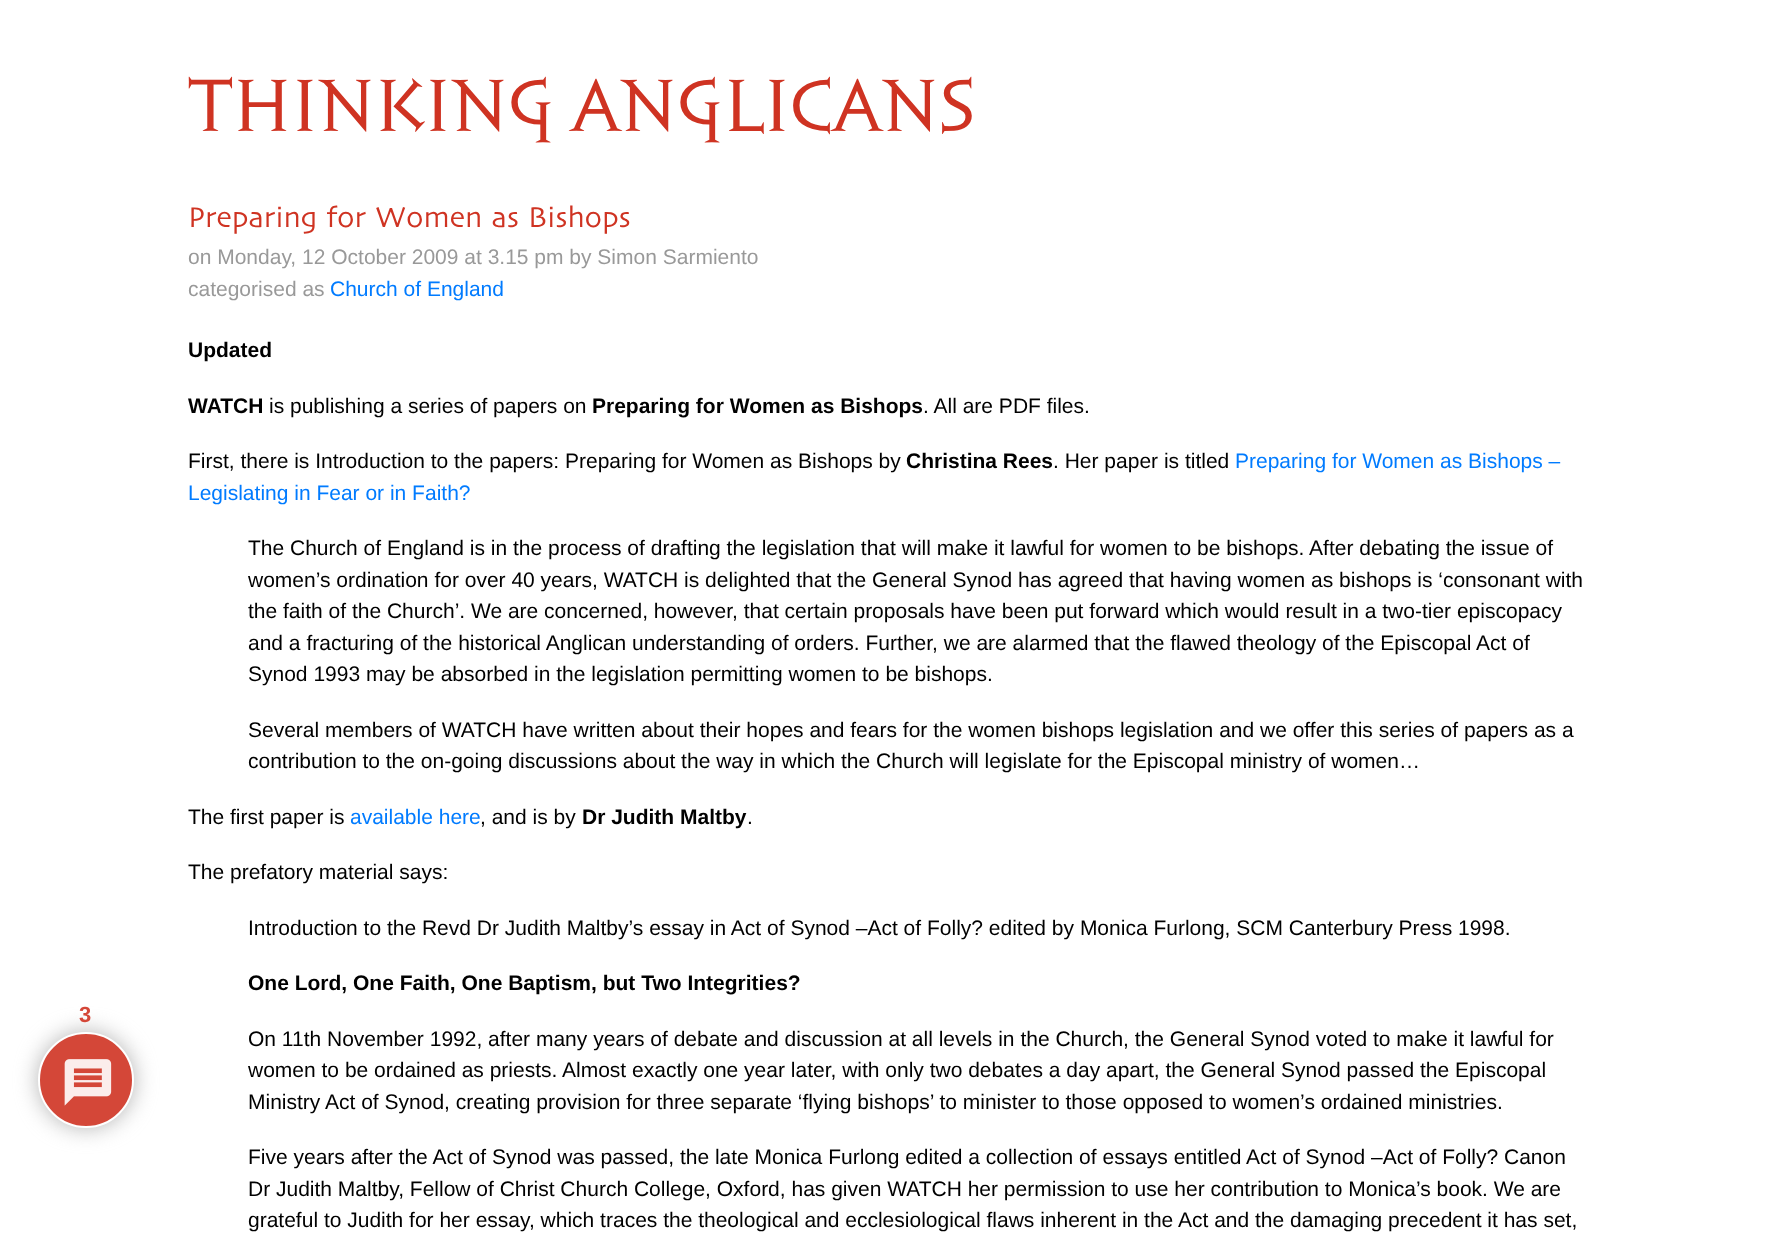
async function draw(canvas) {
  canvas.width = 1769
  canvas.height = 1248
  const ctx = canvas.getContext('2d')
  ctx.miterLimit = 4
  ctx.fontKerning = 'normal'
  async function loadImage(src) {
    const img = new Image()
    img.src = src
    await img.decode()
    return img
  }

  ctx.fillStyle = '#fff'
  ctx.fillRect(0, 0, 1769, 1248)
  ctx.fillStyle = '#b3b3b3'
  ctx.filter = 'blur(11px)'
  ctx.beginPath()
  ctx.roundRect(38, 1032, 96, 96, 48)
  ctx.fill()
  ctx.filter = 'none'
  ctx.fillStyle = '#d44738'
  ctx.beginPath()
  ctx.arc(86, 1080, 47, 0, 2 * Math.PI)
  ctx.fill()
  ctx.strokeStyle = '#fff'
  ctx.lineWidth = 2
  ctx.stroke()
  ctx.drawImage(await loadImage('image0.png'), 64, 1059, 48, 47)
  ctx.font = 'bold 22px Liberation Sans'
  ctx.fillText('3', 79, 1022)
  ctx.font = '69px "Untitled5"'
  ctx.fillStyle = '#cf3322'
  ctx.fillText('THINKING', 188, 131)
  ctx.fillText('ANGLICANS', 571, 131)
  ctx.wordSpacing = '-6px'
  ctx.font = '30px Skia'
  ctx.fillText('Preparing for Women as Bishops', 188, 227)
  ctx.wordSpacing = '0px'
  ctx.font = '21px Liberation Sans'
  ctx.fillStyle = '#999'
  ctx.fillText('on Monday, 12 October 2009 at 3.15 pm by Simon Sarmiento', 188, 264)
  ctx.fillText('categorised as', 188, 296)
  ctx.fillStyle = '#007bff'
  ctx.fillText('Church of England', 330, 296)
  ctx.font = 'bold 21px Liberation Sans'
  ctx.fillStyle = '#000'
  ctx.fillText('Updated', 188, 357)
  ctx.fillText('WATCH', 188, 413)
  ctx.font = '21px Liberation Sans'
  ctx.fillText('is publishing a series of papers on', 269, 413)
  ctx.font = 'bold 21px Liberation Sans'
  ctx.fillText('Preparing for Women as Bishops', 592, 413)
  ctx.font = '21px Liberation Sans'
  ctx.fillText('. All are PDF files.', 923, 413)
  ctx.fillText('First, there is Introduction to the papers: Preparing for Women as Bishops by', 188, 468)
  ctx.font = 'bold 21px Liberation Sans'
  ctx.fillText('Christina Rees', 906, 468)
  ctx.font = '21px Liberation Sans'
  ctx.fillText('. Her paper is titled', 1053, 468)
  ctx.fillStyle = '#007bff'
  ctx.fillText('Preparing for Women as Bishops –', 1235, 468)
  ctx.fillText('Legislating in Fear or in Faith?', 188, 500)
  ctx.fillStyle = '#000'
  ctx.fillText('The Church of England is in the process of drafting the legislation that will make it lawful for women to be bishops. After debating the issue of', 248, 555)
  ctx.fillText('women’s ordination for over 40 years, WATCH is delighted that the General Synod has agreed that having women as bishops is ‘consonant with', 248, 587)
  ctx.fillText('the faith of the Church’. We are concerned, however, that certain proposals have been put forward which would result in a two-tier episcopacy', 248, 618)
  ctx.fillText('and a fracturing of the historical Anglican understanding of orders. Further, we are alarmed that the flawed theology of the Episcopal Act of', 248, 650)
  ctx.fillText('Synod 1993 may be absorbed in the legislation permitting women to be bishops.', 248, 681)
  ctx.fillText('Several members of WATCH have written about their hopes and fears for the women bishops legislation and we offer this series of papers as a', 248, 737)
  ctx.fillText('contribution to the on-going discussions about the way in which the Church will legislate for the Episcopal ministry of women…', 248, 768)
  ctx.fillText('The first paper is', 188, 824)
  ctx.fillStyle = '#007bff'
  ctx.fillText('available here', 350, 824)
  ctx.fillStyle = '#000'
  ctx.fillText(', and is by', 480, 824)
  ctx.font = 'bold 21px Liberation Sans'
  ctx.fillText('Dr Judith Maltby', 582, 824)
  ctx.font = '21px Liberation Sans'
  ctx.fillText('.', 747, 824)
  ctx.fillText('The prefatory material says:', 188, 879)
  ctx.fillText('Introduction to the Revd Dr Judith Maltby’s essay in Act of Synod –Act of Folly? edited by Monica Furlong, SCM Canterbury Press 1998.', 248, 935)
  ctx.font = 'bold 21px Liberation Sans'
  ctx.fillText('One Lord, One Faith, One Baptism, but Two Integrities?', 248, 990)
  ctx.font = '21px Liberation Sans'
  ctx.fillText('On 11th November 1992, after many years of debate and discussion at all levels in the Church, the General Synod voted to make it lawful for', 248, 1046)
  ctx.fillText('women to be ordained as priests. Almost exactly one year later, with only two debates a day apart, the General Synod passed the Episcopal', 248, 1077)
  ctx.fillText('Ministry Act of Synod, creating provision for three separate ‘flying bishops’ to minister to those opposed to women’s ordained ministries.', 248, 1109)
  ctx.fillText('Five years after the Act of Synod was passed, the late Monica Furlong edited a collection of essays entitled Act of Synod –Act of Folly? Canon', 248, 1164)
  ctx.fillText('Dr Judith Maltby, Fellow of Christ Church College, Oxford, has given WATCH her permission to use her contribution to Monica’s book. We are', 248, 1196)
  ctx.fillText('grateful to Judith for her essay, which traces the theological and ecclesiological flaws inherent in the Act and the damaging precedent it has set,', 248, 1227)
}

draw(document.querySelector('canvas'))
